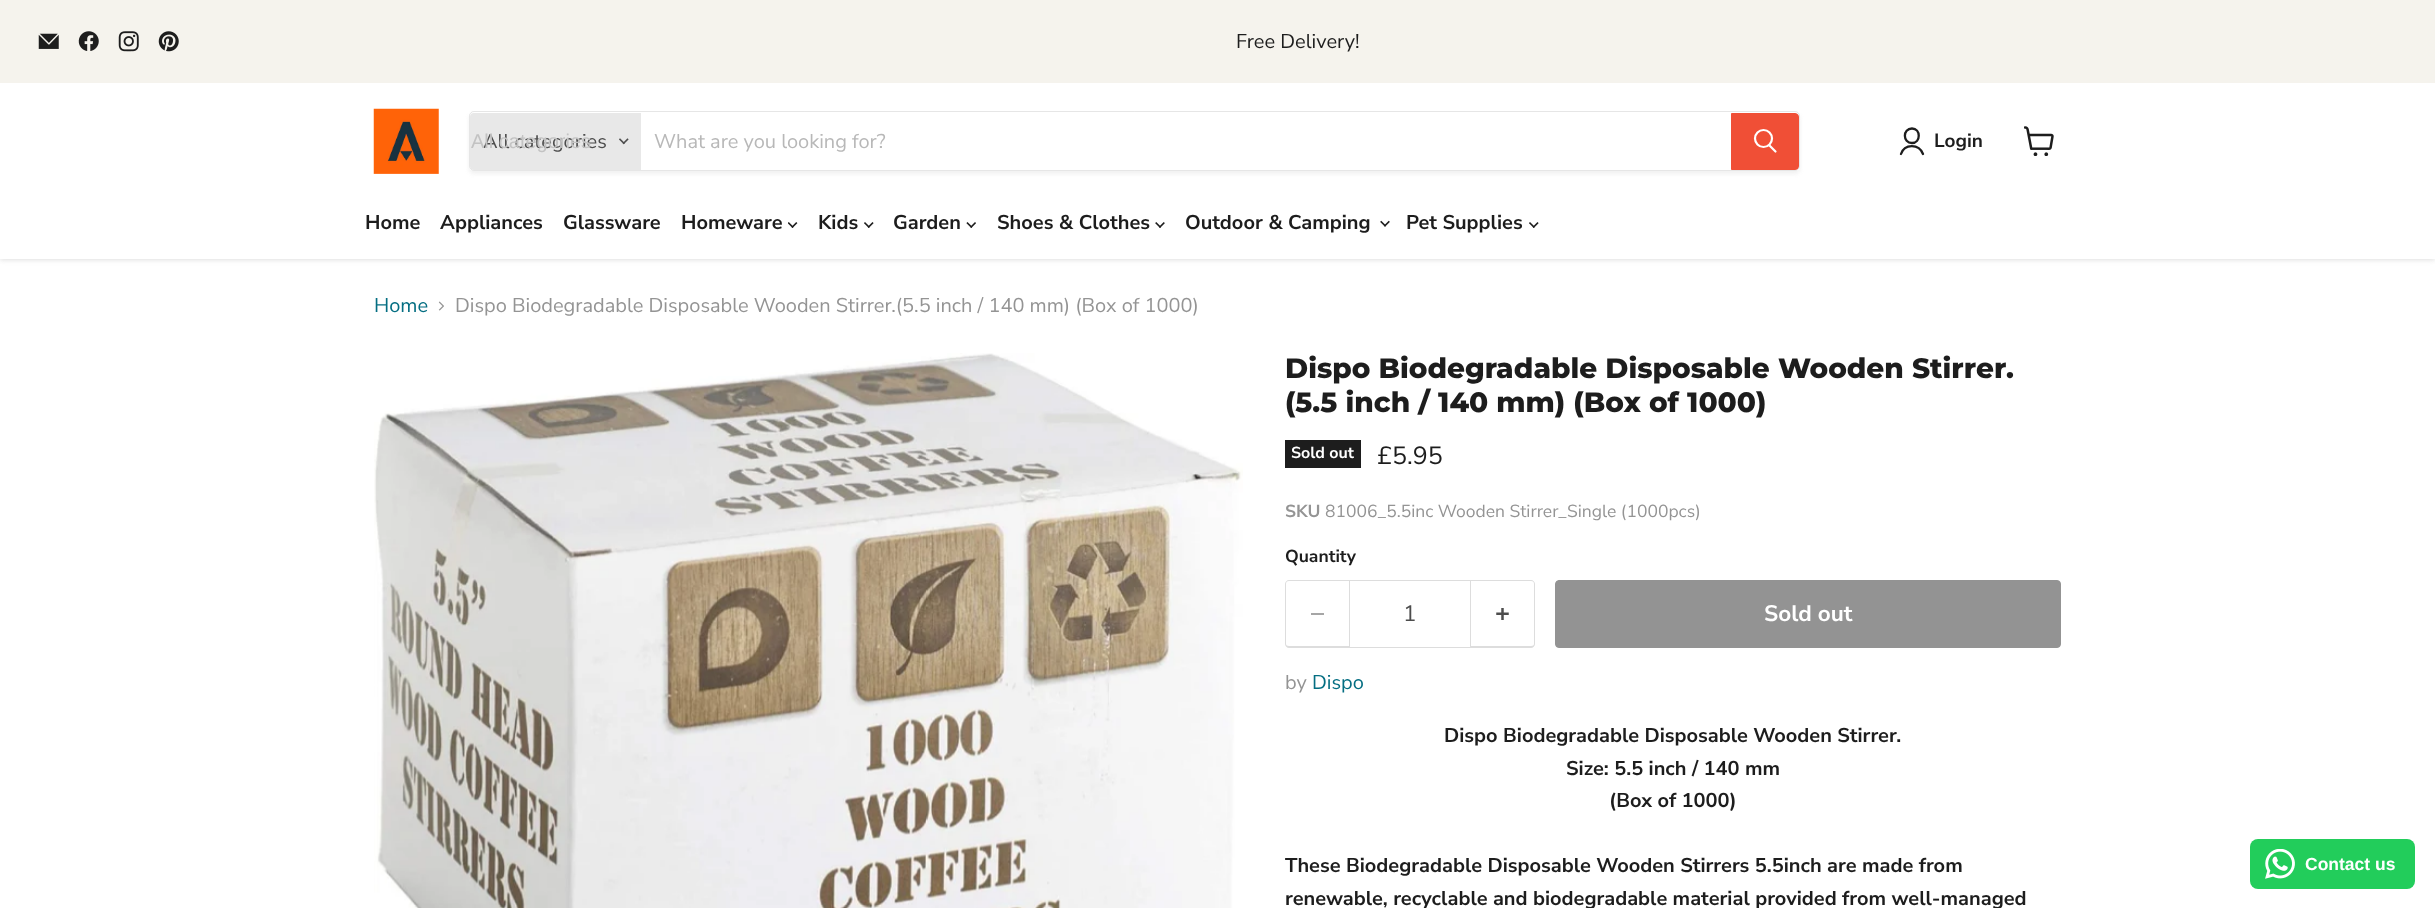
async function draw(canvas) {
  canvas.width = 2435
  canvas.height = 908
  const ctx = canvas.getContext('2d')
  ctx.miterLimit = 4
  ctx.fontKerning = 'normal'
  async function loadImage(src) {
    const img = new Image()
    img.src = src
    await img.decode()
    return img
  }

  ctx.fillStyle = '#fff'
  ctx.fillRect(0, 0, 2435, 908)
  ctx.fillStyle = '#80808040'
  ctx.filter = 'blur(2.5px)'
  ctx.beginPath()
  ctx.rect(0, 85, 2435, 175)
  ctx.fill()
  ctx.filter = 'none'
  ctx.fillStyle = '#f5f3ed'
  ctx.fillRect(0, 0, 2435, 83)
  ctx.drawImage(await loadImage('image0.png'), 38, 33, 21, 16)
  ctx.drawImage(await loadImage('image1.png'), 78, 31, 21, 20)
  ctx.drawImage(await loadImage('image2.png'), 118, 31, 21, 21)
  ctx.drawImage(await loadImage('image3.png'), 158, 31, 21, 21)
  ctx.font = '20px Nunito Sans'
  ctx.fillStyle = '#1d1d1d'
  ctx.fillText('Free Delivery!', 1236, 48)
  ctx.fillStyle = '#fff'
  ctx.fillRect(0, 83, 2435, 176)
  ctx.drawImage(await loadImage('image4.png'), 373, 108, 66, 66)
  ctx.save()
  ctx.beginPath()
  ctx.moveTo(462, 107)
  ctx.lineTo(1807, 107)
  ctx.lineTo(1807, 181)
  ctx.lineTo(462, 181)
  ctx.closePath()
  ctx.moveTo(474, 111)
  ctx.lineTo(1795, 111)
  ctx.bezierCurveTo(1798, 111, 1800, 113, 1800, 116)
  ctx.lineTo(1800, 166)
  ctx.bezierCurveTo(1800, 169, 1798, 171, 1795, 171)
  ctx.lineTo(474, 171)
  ctx.bezierCurveTo(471, 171, 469, 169, 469, 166)
  ctx.lineTo(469, 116)
  ctx.bezierCurveTo(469, 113, 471, 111, 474, 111)
  ctx.closePath()
  ctx.clip('evenodd')
  ctx.fillStyle = '#8080801c'
  ctx.filter = 'blur(2px)'
  ctx.beginPath()
  ctx.roundRect(469, 114, 1331, 60, 5)
  ctx.fill()
  ctx.filter = 'none'
  ctx.restore()
  ctx.beginPath()
  ctx.roundRect(469.5, 111.5, 1330, 59, 4.5)
  ctx.strokeStyle = '#80808033'
  ctx.stroke()
  ctx.fillStyle = '#e8e8e8'
  ctx.beginPath()
  ctx.roundRect(470, 113, 171, 57, [4, 0, 0, 4])
  ctx.fill()
  ctx.fillStyle = '#4d4d4d'
  ctx.fillText('All categories', 483, 148)
  ctx.font = '20px Liberation Sans'
  ctx.fillStyle = '#c3c3c3'
  ctx.fillText('All categories', 471, 148)
  ctx.drawImage(await loadImage('image5.png'), 619, 138, 10, 7)
  ctx.font = '20px Nunito Sans'
  ctx.fillStyle = '#b8b8b8'
  ctx.fillText('What are you looking for?', 654, 148)
  ctx.fillStyle = '#f04f36'
  ctx.beginPath()
  ctx.roundRect(1731.5, 113.5, 67, 56, [0, 3.5, 3.5, 0])
  ctx.fill()
  ctx.strokeStyle = '#f04f36'
  ctx.stroke()
  ctx.beginPath()
  ctx.moveTo(1775.5, 151.5)
  ctx.lineTo(1769.5, 145.5)
  ctx.strokeStyle = '#fff'
  ctx.lineWidth = 2.2
  ctx.lineCap = 'round'
  ctx.stroke()
  ctx.beginPath()
  ctx.arc(1763.5, 138.5, 8.5, 0, 2 * Math.PI)
  ctx.stroke()
  ctx.beginPath()
  ctx.moveTo(1912, 143)
  ctx.bezierCurveTo(1921, 143, 1921, 128.5, 1912, 128.5)
  ctx.bezierCurveTo(1902.5, 128.5, 1902.5, 143, 1912, 143)
  ctx.closePath()
  ctx.moveTo(1923, 154)
  ctx.bezierCurveTo(1919, 143.5, 1904.5, 143.5, 1901, 154)
  ctx.strokeStyle = '#1d1d1d'
  ctx.lineWidth = 2.3
  ctx.lineJoin = 'round'
  ctx.stroke()
  ctx.font = 'bold 19px Nunito Sans'
  ctx.fillStyle = '#1d1d1d'
  ctx.fillText('Login', 1934, 147)
  ctx.drawImage(await loadImage('image6.png'), 2024, 126, 30, 30)
  ctx.font = 'bold 20px Nunito Sans'
  ctx.fillText('Home', 365, 229)
  ctx.fillText('Appliances', 440, 229)
  ctx.fillText('Glassware', 563, 229)
  ctx.fillText('Homeware', 681, 229)
  ctx.drawImage(await loadImage('image7.png'), 788, 222, 10, 6)
  ctx.fillText('Kids', 818, 229)
  ctx.drawImage(await loadImage('image8.png'), 864, 222, 10, 6)
  ctx.fillText('Garden', 893, 229)
  ctx.drawImage(await loadImage('image9.png'), 966, 222, 10, 6)
  ctx.fillText('Shoes & Clothes', 997, 229)
  ctx.drawImage(await loadImage('image10.png'), 1155, 222, 10, 6)
  ctx.fillText('Outdoor & Camping', 1185, 229)
  ctx.drawImage(await loadImage('image11.png'), 1380, 220, 10, 7)
  ctx.fillText('Pet Supplies', 1406, 229)
  ctx.drawImage(await loadImage('image8.png'), 1529, 222, 10, 6)
  ctx.font = '20px Nunito Sans'
  ctx.fillStyle = '#046e82'
  ctx.fillText('Home', 374, 312)
  ctx.drawImage(await loadImage('image12.png'), 438, 301, 6, 10)
  ctx.fillStyle = '#949494'
  ctx.fillText('Dispo Biodegradable Disposable Wooden Stirrer.(5.5 inch / 140 mm) (Box of 1000)', 455, 312)
  ctx.drawImage(await loadImage('image13.png'), 374, 353, 869, 555)
  ctx.font = '800 28px Montserrat'
  ctx.fillStyle = '#1d1d1d'
  ctx.fillText('Dispo Biodegradable Disposable Wooden Stirrer.', 1285, 378)
  ctx.fillText('(5.5 inch / 140 mm) (Box of 1000)', 1285, 412)
  ctx.fillRect(1285, 440, 76, 28)
  ctx.font = 'bold 16px Nunito Sans'
  ctx.fillStyle = '#fff'
  ctx.fillText('Sold out', 1291, 458)
  ctx.font = '25px Nunito Sans'
  ctx.fillStyle = '#1d1d1d'
  ctx.fillText('£5.95', 1377, 464)
  ctx.font = 'bold 17.5px Nunito Sans'
  ctx.fillStyle = '#949494'
  ctx.fillText('SKU', 1285, 517)
  ctx.font = '17.5px Nunito Sans'
  ctx.fillText('81006_5.5inc Wooden Stirrer_Single (1000pcs)', 1325, 517)
  ctx.font = 'bold 17.5px Nunito Sans'
  ctx.fillStyle = '#1d1d1d'
  ctx.fillText('Quantity', 1285, 562)
  ctx.fillStyle = '#ddd'
  ctx.beginPath()
  ctx.moveTo(1289, 580)
  ctx.lineTo(1349, 580)
  ctx.lineTo(1349, 648)
  ctx.lineTo(1289, 648)
  ctx.bezierCurveTo(1287, 648, 1285, 646, 1285, 644)
  ctx.lineTo(1285, 584)
  ctx.bezierCurveTo(1285, 582, 1287, 580, 1289, 580)
  ctx.closePath()
  ctx.moveTo(1289, 581)
  ctx.lineTo(1349, 581)
  ctx.lineTo(1349, 646)
  ctx.lineTo(1289, 646)
  ctx.bezierCurveTo(1287, 646, 1286, 645, 1286, 644)
  ctx.lineTo(1286, 584)
  ctx.bezierCurveTo(1286, 582, 1287, 581, 1289, 581)
  ctx.closePath()
  ctx.fill('evenodd')
  ctx.fillStyle = '#a6a6a6'
  ctx.fillRect(1311, 613, 13, 2)
  ctx.strokeStyle = '#ddd'
  ctx.lineWidth = 1
  ctx.lineJoin = 'miter'
  ctx.strokeRect(1349.5, 580.5, 121, 67)
  ctx.font = '22.5px Nunito Sans'
  ctx.fillStyle = '#4d4d4d'
  ctx.fillText('1', 1403, 621)
  ctx.fillStyle = '#ddd'
  ctx.beginPath()
  ctx.moveTo(1471, 580)
  ctx.lineTo(1531, 580)
  ctx.bezierCurveTo(1533, 580, 1535, 582, 1535, 584)
  ctx.lineTo(1535, 644)
  ctx.bezierCurveTo(1535, 646, 1533, 648, 1531, 648)
  ctx.lineTo(1471, 648)
  ctx.closePath()
  ctx.moveTo(1471, 581)
  ctx.lineTo(1531, 581)
  ctx.bezierCurveTo(1533, 581, 1534, 582, 1534, 584)
  ctx.lineTo(1534, 644)
  ctx.bezierCurveTo(1534, 645, 1533, 646, 1531, 646)
  ctx.lineTo(1471, 646)
  ctx.closePath()
  ctx.fill('evenodd')
  ctx.drawImage(await loadImage('image14.png'), 1496, 608, 13, 12)
  ctx.fillStyle = '#939393'
  ctx.beginPath()
  ctx.roundRect(1555.5, 580.5, 505, 67, 3.5)
  ctx.fill()
  ctx.strokeStyle = '#939393'
  ctx.stroke()
  ctx.font = 'bold 22.5px Nunito Sans'
  ctx.fillStyle = '#fff'
  ctx.fillText('Sold out', 1764, 621)
  ctx.font = '20px Nunito Sans'
  ctx.fillStyle = '#949494'
  ctx.fillText('by', 1285, 689)
  ctx.fillStyle = '#046e82'
  ctx.fillText('Dispo', 1312, 689)
  ctx.font = 'bold 20px Nunito Sans'
  ctx.fillStyle = '#1d1d1d'
  ctx.fillText('Dispo Biodegradable Disposable Wooden Stirrer.', 1444, 742)
  ctx.fillText('Size: 5.5 inch / 140 mm', 1566, 775)
  ctx.fillText('(Box of 1000)', 1609, 807)
  ctx.fillText('These Biodegradable Disposable Wooden Stirrers 5.5inch are made from', 1285, 872)
  ctx.fillText('renewable, recyclable and biodegradable material provided from well-managed', 1285, 905)
  ctx.fillStyle = '#22cd5b'
  ctx.beginPath()
  ctx.roundRect(2250, 839, 165, 50, 8)
  ctx.fill()
  ctx.drawImage(await loadImage('image15.png'), 2265, 849, 30, 30)
  ctx.font = 'bold 17.5px Liberation Sans'
  ctx.fillStyle = '#fff'
  ctx.fillText('Contact us', 2305, 870)
}

draw(document.querySelector('canvas'))
